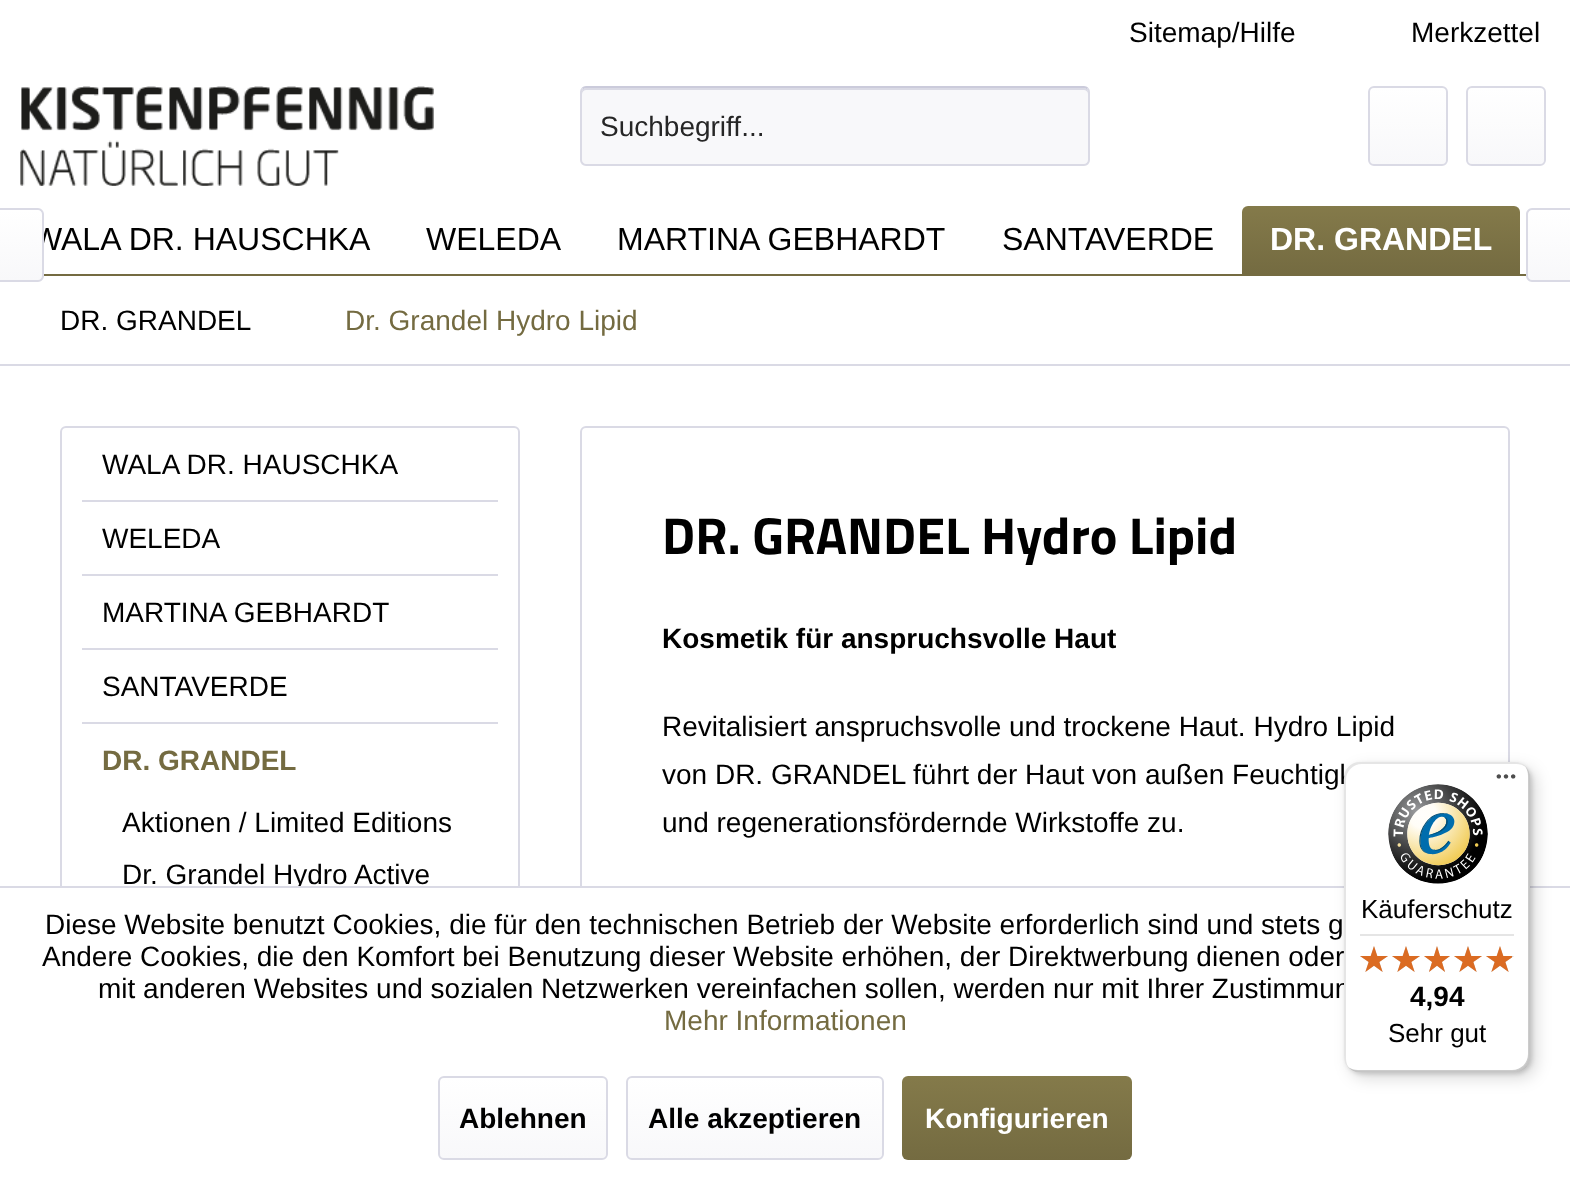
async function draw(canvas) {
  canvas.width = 1570
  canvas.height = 1179
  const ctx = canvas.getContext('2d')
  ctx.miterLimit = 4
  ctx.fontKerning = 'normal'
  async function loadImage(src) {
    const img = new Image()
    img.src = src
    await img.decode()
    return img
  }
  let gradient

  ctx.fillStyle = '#fff'
  ctx.fillRect(0, 0, 1570, 1179)
  ctx.font = '28px Liberation Sans'
  ctx.fillStyle = '#000'
  ctx.fillText('Sitemap/Hilfe', 1129, 42)
  ctx.fillText('Merkzettel', 1411, 42)
  ctx.drawImage(await loadImage('image0.png'), 20, 86, 414, 100)
  ctx.fillStyle = '#f8f8fa'
  ctx.beginPath()
  ctx.roundRect(580, 86, 510, 80, 6)
  ctx.fill()
  ctx.fillStyle = '#dadae5'
  ctx.beginPath()
  ctx.moveTo(586, 90)
  ctx.lineTo(1084, 90)
  ctx.bezierCurveTo(1086, 90, 1088, 92, 1088, 94)
  ctx.bezierCurveTo(1088, 91, 1088, 88, 1084, 88)
  ctx.lineTo(586, 88)
  ctx.bezierCurveTo(582, 88, 582, 91, 582, 94)
  ctx.bezierCurveTo(582, 92, 584, 90, 586, 90)
  ctx.closePath()
  ctx.fill()
  ctx.beginPath()
  ctx.moveTo(582.5, 88.5)
  ctx.bezierCurveTo(583.5, 87.5, 584.5, 87, 586, 87)
  ctx.lineTo(1084, 87)
  ctx.bezierCurveTo(1085.5, 87, 1086.5, 87.5, 1087.5, 88.5)
  ctx.strokeStyle = '#cbcbdb'
  ctx.lineWidth = 2
  ctx.stroke()
  ctx.beginPath()
  ctx.moveTo(1087.5, 88.5)
  ctx.bezierCurveTo(1088.5, 89.5, 1089, 90.5, 1089, 92)
  ctx.lineTo(1089, 160)
  ctx.bezierCurveTo(1089, 161.5, 1088.5, 162.5, 1087.5, 163.5)
  ctx.bezierCurveTo(1086.5, 164.5, 1085.5, 165, 1084, 165)
  ctx.lineTo(586, 165)
  ctx.bezierCurveTo(584.5, 165, 583.5, 164.5, 582.5, 163.5)
  ctx.bezierCurveTo(581.5, 162.5, 581, 161.5, 581, 160)
  ctx.lineTo(581, 92)
  ctx.bezierCurveTo(581, 90.5, 581.5, 89.5, 582.5, 88.5)
  ctx.strokeStyle = '#dadae5'
  ctx.stroke()
  ctx.fillStyle = '#262626'
  ctx.fillText('Suchbegriff...', 600, 136)
  gradient = ctx.createLinearGradient(1408, 88, 1408, 164)
  gradient.addColorStop(0, '#fff')
  gradient.addColorStop(1, '#f8f8fa')
  ctx.fillStyle = gradient
  ctx.beginPath()
  ctx.roundRect(1370, 88, 76, 76, 4)
  ctx.fill()
  ctx.beginPath()
  ctx.roundRect(1369, 87, 78, 78, 5)
  ctx.stroke()
  gradient = ctx.createLinearGradient(1506, 88, 1506, 164)
  gradient.addColorStop(0, '#fff')
  gradient.addColorStop(1, '#f8f8fa')
  ctx.fillStyle = gradient
  ctx.beginPath()
  ctx.roundRect(1468, 88, 76, 76, 4)
  ctx.fill()
  ctx.beginPath()
  ctx.roundRect(1467, 87, 78, 78, 5)
  ctx.stroke()
  ctx.fillStyle = '#746b41'
  ctx.fillRect(44, 274, 1482, 2)
  ctx.font = '32px Liberation Sans'
  ctx.fillStyle = '#000'
  ctx.fillText('WALA DR. HAUSCHKA', 32, 250)
  gradient = ctx.createLinearGradient(21, 210, 21, 280)
  gradient.addColorStop(0, '#fff')
  gradient.addColorStop(1, '#f8f8fa')
  ctx.fillStyle = gradient
  ctx.beginPath()
  ctx.roundRect(0, 210, 42, 70, [0, 4, 4, 0])
  ctx.fill()
  ctx.fillStyle = '#dadae5'
  ctx.beginPath()
  ctx.moveTo(0, 208)
  ctx.lineTo(38, 208)
  ctx.bezierCurveTo(41, 208, 44, 211, 44, 214)
  ctx.lineTo(44, 276)
  ctx.bezierCurveTo(44, 279, 41, 282, 38, 282)
  ctx.lineTo(0, 282)
  ctx.closePath()
  ctx.moveTo(0, 210)
  ctx.lineTo(38, 210)
  ctx.bezierCurveTo(40, 210, 42, 212, 42, 214)
  ctx.lineTo(42, 276)
  ctx.bezierCurveTo(42, 278, 40, 280, 38, 280)
  ctx.lineTo(0, 280)
  ctx.closePath()
  ctx.fill('evenodd')
  ctx.fillStyle = '#000'
  ctx.fillText('WELEDA', 426, 250)
  ctx.fillText('MARTINA GEBHARDT', 617, 250)
  ctx.fillText('SANTAVERDE', 1002, 250)
  gradient = ctx.createLinearGradient(1381, 206, 1381, 274)
  gradient.addColorStop(0, '#847a4a')
  gradient.addColorStop(1, '#746b41')
  ctx.fillStyle = gradient
  ctx.beginPath()
  ctx.roundRect(1242, 206, 278, 68, [6, 6, 0, 0])
  ctx.fill()
  ctx.font = 'bold 32px Liberation Sans'
  ctx.fillStyle = '#fff'
  ctx.fillText('DR. GRANDEL', 1270, 250)
  gradient = ctx.createLinearGradient(1549, 210, 1549, 280)
  gradient.addColorStop(0, '#fff')
  gradient.addColorStop(1, '#f8f8fa')
  ctx.fillStyle = gradient
  ctx.beginPath()
  ctx.roundRect(1528, 210, 42, 70, [4, 0, 0, 4])
  ctx.fill()
  ctx.fillStyle = '#dadae5'
  ctx.beginPath()
  ctx.moveTo(1532, 208)
  ctx.lineTo(1570, 208)
  ctx.lineTo(1570, 282)
  ctx.lineTo(1532, 282)
  ctx.bezierCurveTo(1529, 282, 1526, 279, 1526, 276)
  ctx.lineTo(1526, 214)
  ctx.bezierCurveTo(1526, 211, 1529, 208, 1532, 208)
  ctx.closePath()
  ctx.moveTo(1532, 210)
  ctx.lineTo(1570, 210)
  ctx.lineTo(1570, 280)
  ctx.lineTo(1532, 280)
  ctx.bezierCurveTo(1530, 280, 1528, 278, 1528, 276)
  ctx.lineTo(1528, 214)
  ctx.bezierCurveTo(1528, 212, 1530, 210, 1532, 210)
  ctx.closePath()
  ctx.fill('evenodd')
  ctx.fillRect(0, 364, 1570, 2)
  ctx.font = '28px Liberation Sans'
  ctx.fillStyle = '#000'
  ctx.fillText('DR. GRANDEL', 60, 330)
  ctx.fillStyle = '#746b41'
  ctx.fillText('Dr. Grandel Hydro Lipid', 345, 330)
  ctx.beginPath()
  ctx.roundRect(61, 427, 458, 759, 5)
  ctx.stroke()
  ctx.fillStyle = '#dadae5'
  ctx.fillRect(82, 500, 416, 2)
  ctx.fillStyle = '#000'
  ctx.fillText('WALA DR. HAUSCHKA', 102, 474)
  ctx.fillStyle = '#dadae5'
  ctx.fillRect(82, 574, 416, 2)
  ctx.fillStyle = '#000'
  ctx.fillText('WELEDA', 102, 548)
  ctx.fillStyle = '#dadae5'
  ctx.fillRect(82, 648, 416, 2)
  ctx.fillStyle = '#000'
  ctx.fillText('MARTINA GEBHARDT', 102, 622)
  ctx.fillStyle = '#dadae5'
  ctx.fillRect(82, 722, 416, 2)
  ctx.fillStyle = '#000'
  ctx.fillText('SANTAVERDE', 102, 696)
  ctx.font = 'bold 28px Liberation Sans'
  ctx.fillStyle = '#746b41'
  ctx.fillText('DR. GRANDEL', 102, 770)
  ctx.font = '28px Liberation Sans'
  ctx.fillStyle = '#000'
  ctx.fillText('Aktionen / Limited Editions', 122, 832)
  ctx.fillText('Dr. Grandel Hydro Active', 122, 884)
  ctx.beginPath()
  ctx.roundRect(581, 427, 928, 480, 5)
  ctx.stroke()
  ctx.font = 'bold 52px Titillium Web'
  ctx.fillText('DR. GRANDEL Hydro Lipid', 662, 554)
  ctx.font = 'bold 28px Liberation Sans'
  ctx.fillText('Kosmetik für anspruchsvolle Haut', 662, 648)
  ctx.font = '28px Liberation Sans'
  ctx.fillText('Revitalisiert anspruchsvolle und trockene Haut. Hydro Lipid', 662, 736)
  ctx.fillText('von DR. GRANDEL führt der Haut von außen Feuchtigk', 662, 784)
  ctx.fillText('und regenerationsfördernde Wirkstoffe zu.', 662, 832)
  ctx.fillStyle = '#fff'
  ctx.fillRect(60, 888, 1450, 291)
  ctx.fillStyle = '#dadae5'
  ctx.fillRect(0, 886, 1570, 2)
  ctx.fillStyle = '#000'
  ctx.fillText('Diese Website benutzt Cookies, die für den technischen Betrieb der Website erforderlich sind und stets g', 45, 934)
  ctx.fillText('Andere Cookies, die den Komfort bei Benutzung dieser Website erhöhen, der Direktwerbung dienen oder', 42, 966)
  ctx.fillText('mit anderen Websites und sozialen Netzwerken vereinfachen sollen, werden nur mit Ihrer Zustimmun', 98, 998)
  ctx.fillStyle = '#746b41'
  ctx.fillText('Mehr Informationen', 664, 1030)
  gradient = ctx.createLinearGradient(523, 1078, 523, 1158)
  gradient.addColorStop(0, '#fff')
  gradient.addColorStop(1, '#f8f8fa')
  ctx.fillStyle = gradient
  ctx.beginPath()
  ctx.roundRect(440, 1078, 166, 80, 4)
  ctx.fill()
  ctx.beginPath()
  ctx.roundRect(439, 1077, 168, 82, 5)
  ctx.stroke()
  ctx.font = 'bold 28px Liberation Sans'
  ctx.fillStyle = '#000'
  ctx.fillText('Ablehnen', 459, 1128)
  gradient = ctx.createLinearGradient(755, 1078, 755, 1158)
  gradient.addColorStop(0, '#fff')
  gradient.addColorStop(1, '#f8f8fa')
  ctx.fillStyle = gradient
  ctx.beginPath()
  ctx.roundRect(628, 1078, 254, 80, 4)
  ctx.fill()
  ctx.beginPath()
  ctx.roundRect(627, 1077, 256, 82, 5)
  ctx.stroke()
  ctx.fillStyle = '#000'
  ctx.fillText('Alle akzeptieren', 648, 1128)
  gradient = ctx.createLinearGradient(1017, 1076, 1017, 1160)
  gradient.addColorStop(0, '#847a4a')
  gradient.addColorStop(1, '#746b41')
  ctx.fillStyle = gradient
  ctx.beginPath()
  ctx.roundRect(902, 1076, 230, 84, 6)
  ctx.fill()
  ctx.fillStyle = '#fff'
  ctx.fillText('Konfigurieren', 925, 1128)
  ctx.fillStyle = '#00000026'
  ctx.filter = 'blur(8px)'
  ctx.beginPath()
  ctx.roundRect(1350, 768, 186, 310, 16)
  ctx.fill()
  ctx.filter = 'none'
  ctx.filter = 'blur(2px)'
  ctx.beginPath()
  ctx.roundRect(1346, 764, 186, 310, 16)
  ctx.fill()
  ctx.filter = 'none'
  ctx.fillStyle = '#fff'
  ctx.beginPath()
  ctx.roundRect(1344, 762, 186, 310, 16)
  ctx.fill()
  ctx.fillStyle = '#0000001a'
  ctx.beginPath()
  ctx.moveTo(1362, 764)
  ctx.lineTo(1516, 764)
  ctx.bezierCurveTo(1520, 764, 1523, 765, 1526, 767)
  ctx.bezierCurveTo(1523, 764, 1519, 762, 1514, 762)
  ctx.lineTo(1360, 762)
  ctx.bezierCurveTo(1351, 762, 1344, 769, 1344, 778)
  ctx.lineTo(1344, 1056)
  ctx.bezierCurveTo(1344, 1061, 1346, 1065, 1349, 1068)
  ctx.bezierCurveTo(1347, 1065, 1346, 1062, 1346, 1058)
  ctx.lineTo(1346, 780)
  ctx.bezierCurveTo(1346, 771, 1353, 764, 1362, 764)
  ctx.closePath()
  ctx.fill()
  ctx.fillStyle = '#00000033'
  ctx.beginPath()
  ctx.moveTo(1348, 1067)
  ctx.bezierCurveTo(1351, 1070, 1355, 1072, 1360, 1072)
  ctx.lineTo(1514, 1072)
  ctx.bezierCurveTo(1523, 1072, 1530, 1065, 1530, 1056)
  ctx.lineTo(1530, 778)
  ctx.bezierCurveTo(1530, 773, 1528, 769, 1525, 766)
  ctx.bezierCurveTo(1527, 769, 1528, 772, 1528, 776)
  ctx.lineTo(1528, 1054)
  ctx.bezierCurveTo(1528, 1063, 1521, 1070, 1512, 1070)
  ctx.lineTo(1358, 1070)
  ctx.bezierCurveTo(1354, 1070, 1351, 1069, 1348, 1067)
  ctx.closePath()
  ctx.fill()
  ctx.fillStyle = '#32323233'
  ctx.beginPath()
  ctx.moveTo(1349, 1067)
  ctx.bezierCurveTo(1352, 1070, 1356, 1072, 1360, 1072)
  ctx.lineTo(1514, 1072)
  ctx.bezierCurveTo(1523, 1072, 1530, 1065, 1530, 1056)
  ctx.lineTo(1530, 778)
  ctx.bezierCurveTo(1530, 774, 1528, 770, 1525, 767)
  ctx.bezierCurveTo(1528, 770, 1529, 773, 1529, 777)
  ctx.lineTo(1529, 1055)
  ctx.bezierCurveTo(1529, 1064, 1522, 1071, 1513, 1071)
  ctx.lineTo(1359, 1071)
  ctx.bezierCurveTo(1355, 1071, 1352, 1070, 1349, 1067)
  ctx.closePath()
  ctx.fill()
  ctx.fillStyle = '#ffffff4d'
  ctx.beginPath()
  ctx.moveTo(1349, 1067)
  ctx.bezierCurveTo(1352, 1070, 1356, 1072, 1360, 1072)
  ctx.lineTo(1514, 1072)
  ctx.bezierCurveTo(1523, 1072, 1530, 1065, 1530, 1056)
  ctx.lineTo(1530, 778)
  ctx.bezierCurveTo(1530, 774, 1528, 770, 1525, 767)
  ctx.bezierCurveTo(1528, 770, 1529, 773, 1529, 777)
  ctx.lineTo(1529, 1055)
  ctx.bezierCurveTo(1529, 1064, 1522, 1071, 1513, 1071)
  ctx.lineTo(1359, 1071)
  ctx.bezierCurveTo(1355, 1071, 1352, 1070, 1349, 1067)
  ctx.closePath()
  ctx.fill()
  ctx.drawImage(await loadImage('image1.png'), 1496, 774, 20, 5)
  ctx.drawImage(await loadImage('image2.png'), 1388, 784, 100, 100)
  ctx.font = '26px Liberation Sans'
  ctx.fillStyle = '#000'
  ctx.fillText('Käuferschutz', 1361, 918)
  ctx.fillStyle = '#e5e5e5'
  ctx.fillRect(1360, 934, 154, 2)
  ctx.drawImage(await loadImage('image3.png'), 1360, 946, 28, 26)
  ctx.drawImage(await loadImage('image3.png'), 1392, 946, 28, 26)
  ctx.drawImage(await loadImage('image4.png'), 1424, 946, 26, 26)
  ctx.drawImage(await loadImage('image3.png'), 1454, 946, 28, 26)
  ctx.drawImage(await loadImage('image3.png'), 1486, 946, 28, 26)
  ctx.drawImage(await loadImage('image5.png'), 1360, 946, 28, 26)
  ctx.drawImage(await loadImage('image5.png'), 1392, 946, 28, 26)
  ctx.drawImage(await loadImage('image6.png'), 1424, 946, 26, 26)
  ctx.drawImage(await loadImage('image5.png'), 1454, 946, 28, 26)
  ctx.drawImage(await loadImage('image7.png'), 1486, 946, 26, 26)
  ctx.font = 'bold 28px Liberation Sans'
  ctx.fillStyle = '#000'
  ctx.fillText('4,94', 1410, 1006)
  ctx.font = '26px Liberation Sans'
  ctx.fillText('Sehr gut', 1388, 1042)
}

draw(document.querySelector('canvas'))
